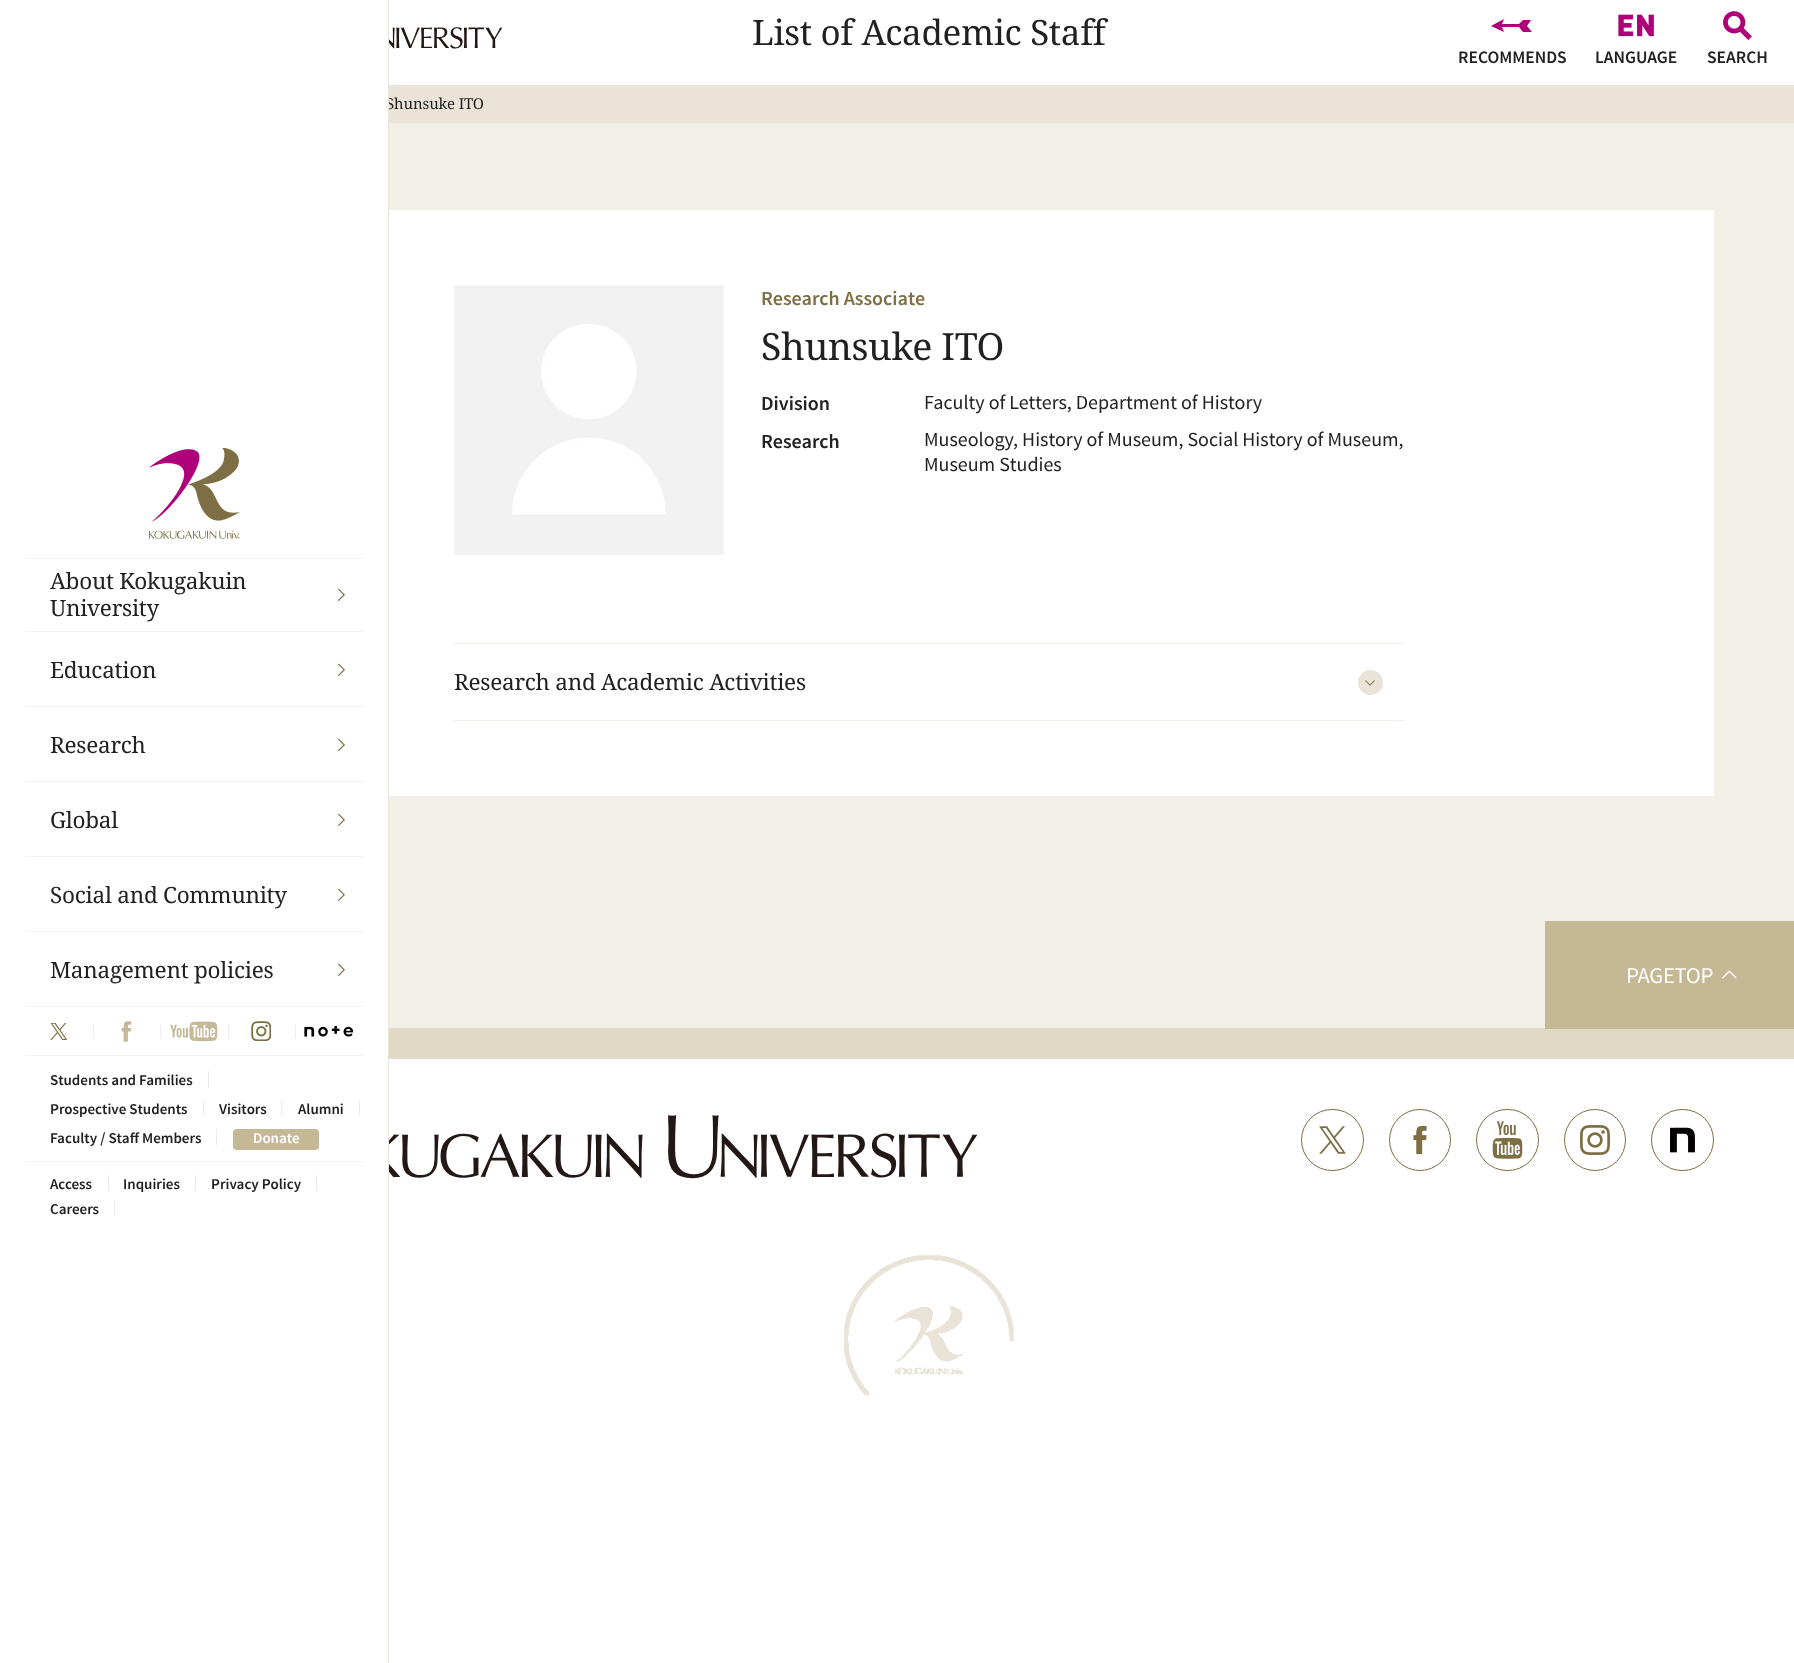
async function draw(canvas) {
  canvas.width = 1794
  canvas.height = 1663
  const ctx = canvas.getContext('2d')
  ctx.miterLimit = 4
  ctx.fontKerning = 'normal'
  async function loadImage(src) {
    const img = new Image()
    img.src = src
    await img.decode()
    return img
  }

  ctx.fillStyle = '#fff'
  ctx.fillRect(0, 0, 1794, 1663)
  ctx.fillStyle = '#e9e4d7'
  ctx.fillRect(389, 85, 1405, 38)
  ctx.letterSpacing = '-0.1px'
  ctx.font = '15px Droid Serif'
  ctx.fillStyle = '#212121'
  ctx.fillText('Shunsuke ITO', 386, 109)
  ctx.fillStyle = '#fff'
  ctx.fillRect(387, 99, 1, 10)
  ctx.fillStyle = '#e9e4d7'
  ctx.fillRect(388, 0, 1, 1663)
  ctx.drawImage(await loadImage('image0.png'), 149, 448, 91, 91)
  ctx.fillStyle = '#f2f2f2'
  ctx.fillRect(25, 558, 338, 1)
  ctx.letterSpacing = '-0.25px'
  ctx.font = '22.5px Droid Serif'
  ctx.fillStyle = '#212121'
  ctx.fillText('About Kokugakuin', 50, 589)
  ctx.fillText('University', 50, 616)
  ctx.drawImage(await loadImage('image1.png'), 338, 588, 7, 13)
  ctx.fillStyle = '#f2f2f2'
  ctx.fillRect(25, 631, 338, 1)
  ctx.fillStyle = '#212121'
  ctx.fillText('Education', 50, 678)
  ctx.drawImage(await loadImage('image1.png'), 338, 663, 7, 13)
  ctx.fillStyle = '#f2f2f2'
  ctx.fillRect(25, 706, 338, 1)
  ctx.fillStyle = '#212121'
  ctx.fillText('Research', 50, 753)
  ctx.drawImage(await loadImage('image1.png'), 338, 738, 7, 13)
  ctx.fillStyle = '#f2f2f2'
  ctx.fillRect(25, 781, 338, 1)
  ctx.fillStyle = '#212121'
  ctx.fillText('Global', 50, 828)
  ctx.drawImage(await loadImage('image1.png'), 338, 813, 7, 13)
  ctx.fillStyle = '#f2f2f2'
  ctx.fillRect(25, 856, 338, 1)
  ctx.fillStyle = '#212121'
  ctx.fillText('Social and Community', 50, 903)
  ctx.drawImage(await loadImage('image1.png'), 338, 888, 7, 13)
  ctx.fillStyle = '#f2f2f2'
  ctx.fillRect(25, 931, 338, 1)
  ctx.fillStyle = '#212121'
  ctx.fillText('Management policies', 50, 978)
  ctx.drawImage(await loadImage('image1.png'), 338, 963, 7, 13)
  ctx.fillStyle = '#f2f2f2'
  ctx.fillRect(25, 1006, 338, 1)
  ctx.fillRect(25, 1055, 338, 1)
  ctx.drawImage(await loadImage('image2.png'), 50, 1023, 18, 17)
  ctx.fillStyle = '#ededed'
  ctx.fillRect(93, 1025, 1, 13)
  ctx.drawImage(await loadImage('image3.png'), 121, 1021, 11, 21)
  ctx.fillRect(160, 1025, 1, 13)
  ctx.drawImage(await loadImage('image4.png'), 170, 1021, 48, 21)
  ctx.fillRect(228, 1025, 1, 13)
  ctx.drawImage(await loadImage('image5.png'), 251, 1021, 20, 20)
  ctx.fillRect(295, 1025, 1, 13)
  ctx.drawImage(await loadImage('image6.png'), 304, 1025, 50, 12)
  ctx.fillRect(208, 1071, 1, 17)
  ctx.letterSpacing = '0px'
  ctx.font = '600 15px Source Sans Pro'
  ctx.fillStyle = '#212121'
  ctx.fillText('Students and Families', 50, 1085)
  ctx.fillStyle = '#ededed'
  ctx.fillRect(203, 1100, 1, 16)
  ctx.fillStyle = '#212121'
  ctx.fillText('Prospective Students', 50, 1114)
  ctx.fillStyle = '#ededed'
  ctx.fillRect(281, 1100, 1, 16)
  ctx.fillStyle = '#212121'
  ctx.fillText('Visitors', 219, 1114)
  ctx.fillStyle = '#ededed'
  ctx.fillRect(359, 1100, 1, 16)
  ctx.fillStyle = '#212121'
  ctx.fillText('Alumni', 298, 1114)
  ctx.fillStyle = '#ededed'
  ctx.fillRect(216, 1129, 1, 16)
  ctx.fillStyle = '#212121'
  ctx.fillText('Faculty / Staff Members', 50, 1143)
  ctx.fillStyle = '#c5b895'
  ctx.beginPath()
  ctx.roundRect(233, 1129, 86, 21, 4)
  ctx.fill()
  ctx.fillStyle = '#fff'
  ctx.fillText('Donate', 253, 1143)
  ctx.fillStyle = '#f2f2f2'
  ctx.fillRect(25, 1161, 338, 1)
  ctx.fillStyle = '#ededed'
  ctx.fillRect(108, 1175, 1, 16)
  ctx.fillStyle = '#212121'
  ctx.fillText('Access', 50, 1189)
  ctx.fillStyle = '#ededed'
  ctx.fillRect(195, 1175, 1, 16)
  ctx.fillStyle = '#212121'
  ctx.fillText('Inquiries', 123, 1189)
  ctx.fillStyle = '#ededed'
  ctx.fillRect(316, 1175, 1, 16)
  ctx.fillStyle = '#212121'
  ctx.fillText('Privacy Policy', 211, 1189)
  ctx.fillStyle = '#ededed'
  ctx.fillRect(114, 1200, 1, 16)
  ctx.fillStyle = '#212121'
  ctx.fillText('Careers', 50, 1214)
  ctx.drawImage(await loadImage('image7.png'), 389, 27, 114, 22)
  ctx.letterSpacing = '-0.35px'
  ctx.font = '35px Droid Serif'
  ctx.fillText('List of Academic Staff', 752, 45)
  ctx.fillStyle = '#ad0079'
  ctx.beginPath()
  ctx.moveTo(1523, 32)
  ctx.lineTo(1532, 32)
  ctx.lineTo(1527, 26)
  ctx.lineTo(1531, 20)
  ctx.lineTo(1523, 20)
  ctx.lineTo(1519, 24)
  ctx.lineTo(1502, 24)
  ctx.lineTo(1504, 19)
  ctx.lineTo(1491, 26)
  ctx.lineTo(1504, 32)
  ctx.lineTo(1502, 27)
  ctx.lineTo(1519, 27)
  ctx.closePath()
  ctx.fill()
  ctx.letterSpacing = '0px'
  ctx.font = '600 17.5px Source Sans Pro'
  ctx.fillStyle = '#212121'
  ctx.fillText('RECOMMENDS', 1458, 63)
  ctx.drawImage(await loadImage('image8.png'), 1618, 14, 36, 23)
  ctx.fillText('LANGUAGE', 1595, 63)
  ctx.drawImage(await loadImage('image9.png'), 1723, 11, 29, 29)
  ctx.fillText('SEARCH', 1707, 63)
  ctx.fillStyle = '#f2efe7'
  ctx.fillRect(389, 123, 1405, 905)
  ctx.fillStyle = '#fff'
  ctx.fillRect(389, 210, 1325, 586)
  ctx.drawImage(await loadImage('image10.png'), 454, 285, 270, 270)
  ctx.font = '600 20px Source Sans Pro'
  ctx.fillStyle = '#7d6e44'
  ctx.fillText('Research Associate', 761, 305)
  ctx.letterSpacing = '-0.4px'
  ctx.font = '37.5px Droid Serif'
  ctx.fillStyle = '#212121'
  ctx.fillText('Shunsuke ITO', 761, 360)
  ctx.letterSpacing = '0px'
  ctx.font = '600 20px Source Sans Pro'
  ctx.fillText('Division', 761, 410)
  ctx.font = '20px Source Sans Pro'
  ctx.fillText('Faculty of Letters, Department of History', 924, 409)
  ctx.font = '600 20px Source Sans Pro'
  ctx.fillText('Research', 761, 448)
  ctx.font = '20px Source Sans Pro'
  ctx.fillText('Museology, History of Museum, Social History of Museum,', 924, 446)
  ctx.fillText('Museum Studies', 924, 471)
  ctx.fillStyle = '#f2efe7'
  ctx.fillRect(454, 643, 950, 1)
  ctx.fillRect(454, 720, 950, 1)
  ctx.letterSpacing = '-0.25px'
  ctx.font = '22.5px Droid Serif'
  ctx.fillStyle = '#212121'
  ctx.fillText('Research and Academic Activities', 454, 690)
  ctx.fillStyle = '#e9e4d7'
  ctx.beginPath()
  ctx.arc(1370.5, 682.5, 12.5, 0, 2 * Math.PI)
  ctx.fill()
  ctx.drawImage(await loadImage('image11.png'), 1365, 680, 10, 6)
  ctx.fillStyle = '#e0d9c6'
  ctx.fillRect(389, 1028, 1405, 31)
  ctx.fillStyle = '#c5b895'
  ctx.fillRect(1545, 921, 249, 108)
  ctx.font = '22.5px Source Sans Pro'
  ctx.fillStyle = '#fff'
  ctx.fillText('PAGETOP', 1626, 983)
  ctx.drawImage(await loadImage('image12.png'), 1722, 970, 15, 9)
  ctx.drawImage(await loadImage('image13.png'), 389, 1115, 589, 64)
  ctx.beginPath()
  ctx.roundRect(1301.5, 1109.5, 62, 61, 30.5)
  ctx.strokeStyle = '#7d6e44'
  ctx.stroke()
  ctx.drawImage(await loadImage('image14.png'), 1319, 1126, 27, 28)
  ctx.beginPath()
  ctx.arc(1420, 1140, 30.5, 0, 2 * Math.PI)
  ctx.stroke()
  ctx.drawImage(await loadImage('image15.png'), 1413, 1125, 14, 30)
  ctx.beginPath()
  ctx.roundRect(1476.5, 1109.5, 62, 61, 30.5)
  ctx.stroke()
  ctx.drawImage(await loadImage('image16.png'), 1492, 1121, 31, 38)
  ctx.beginPath()
  ctx.arc(1595, 1140, 30.5, 0, 2 * Math.PI)
  ctx.stroke()
  ctx.drawImage(await loadImage('image17.png'), 1580, 1125, 30, 30)
  ctx.beginPath()
  ctx.roundRect(1651.5, 1109.5, 62, 61, 30.5)
  ctx.stroke()
  ctx.drawImage(await loadImage('image18.png'), 1670, 1127, 25, 26)
  ctx.drawImage(await loadImage('image19.png'), 843, 1255, 171, 141)
}

draw(document.querySelector('canvas'))
